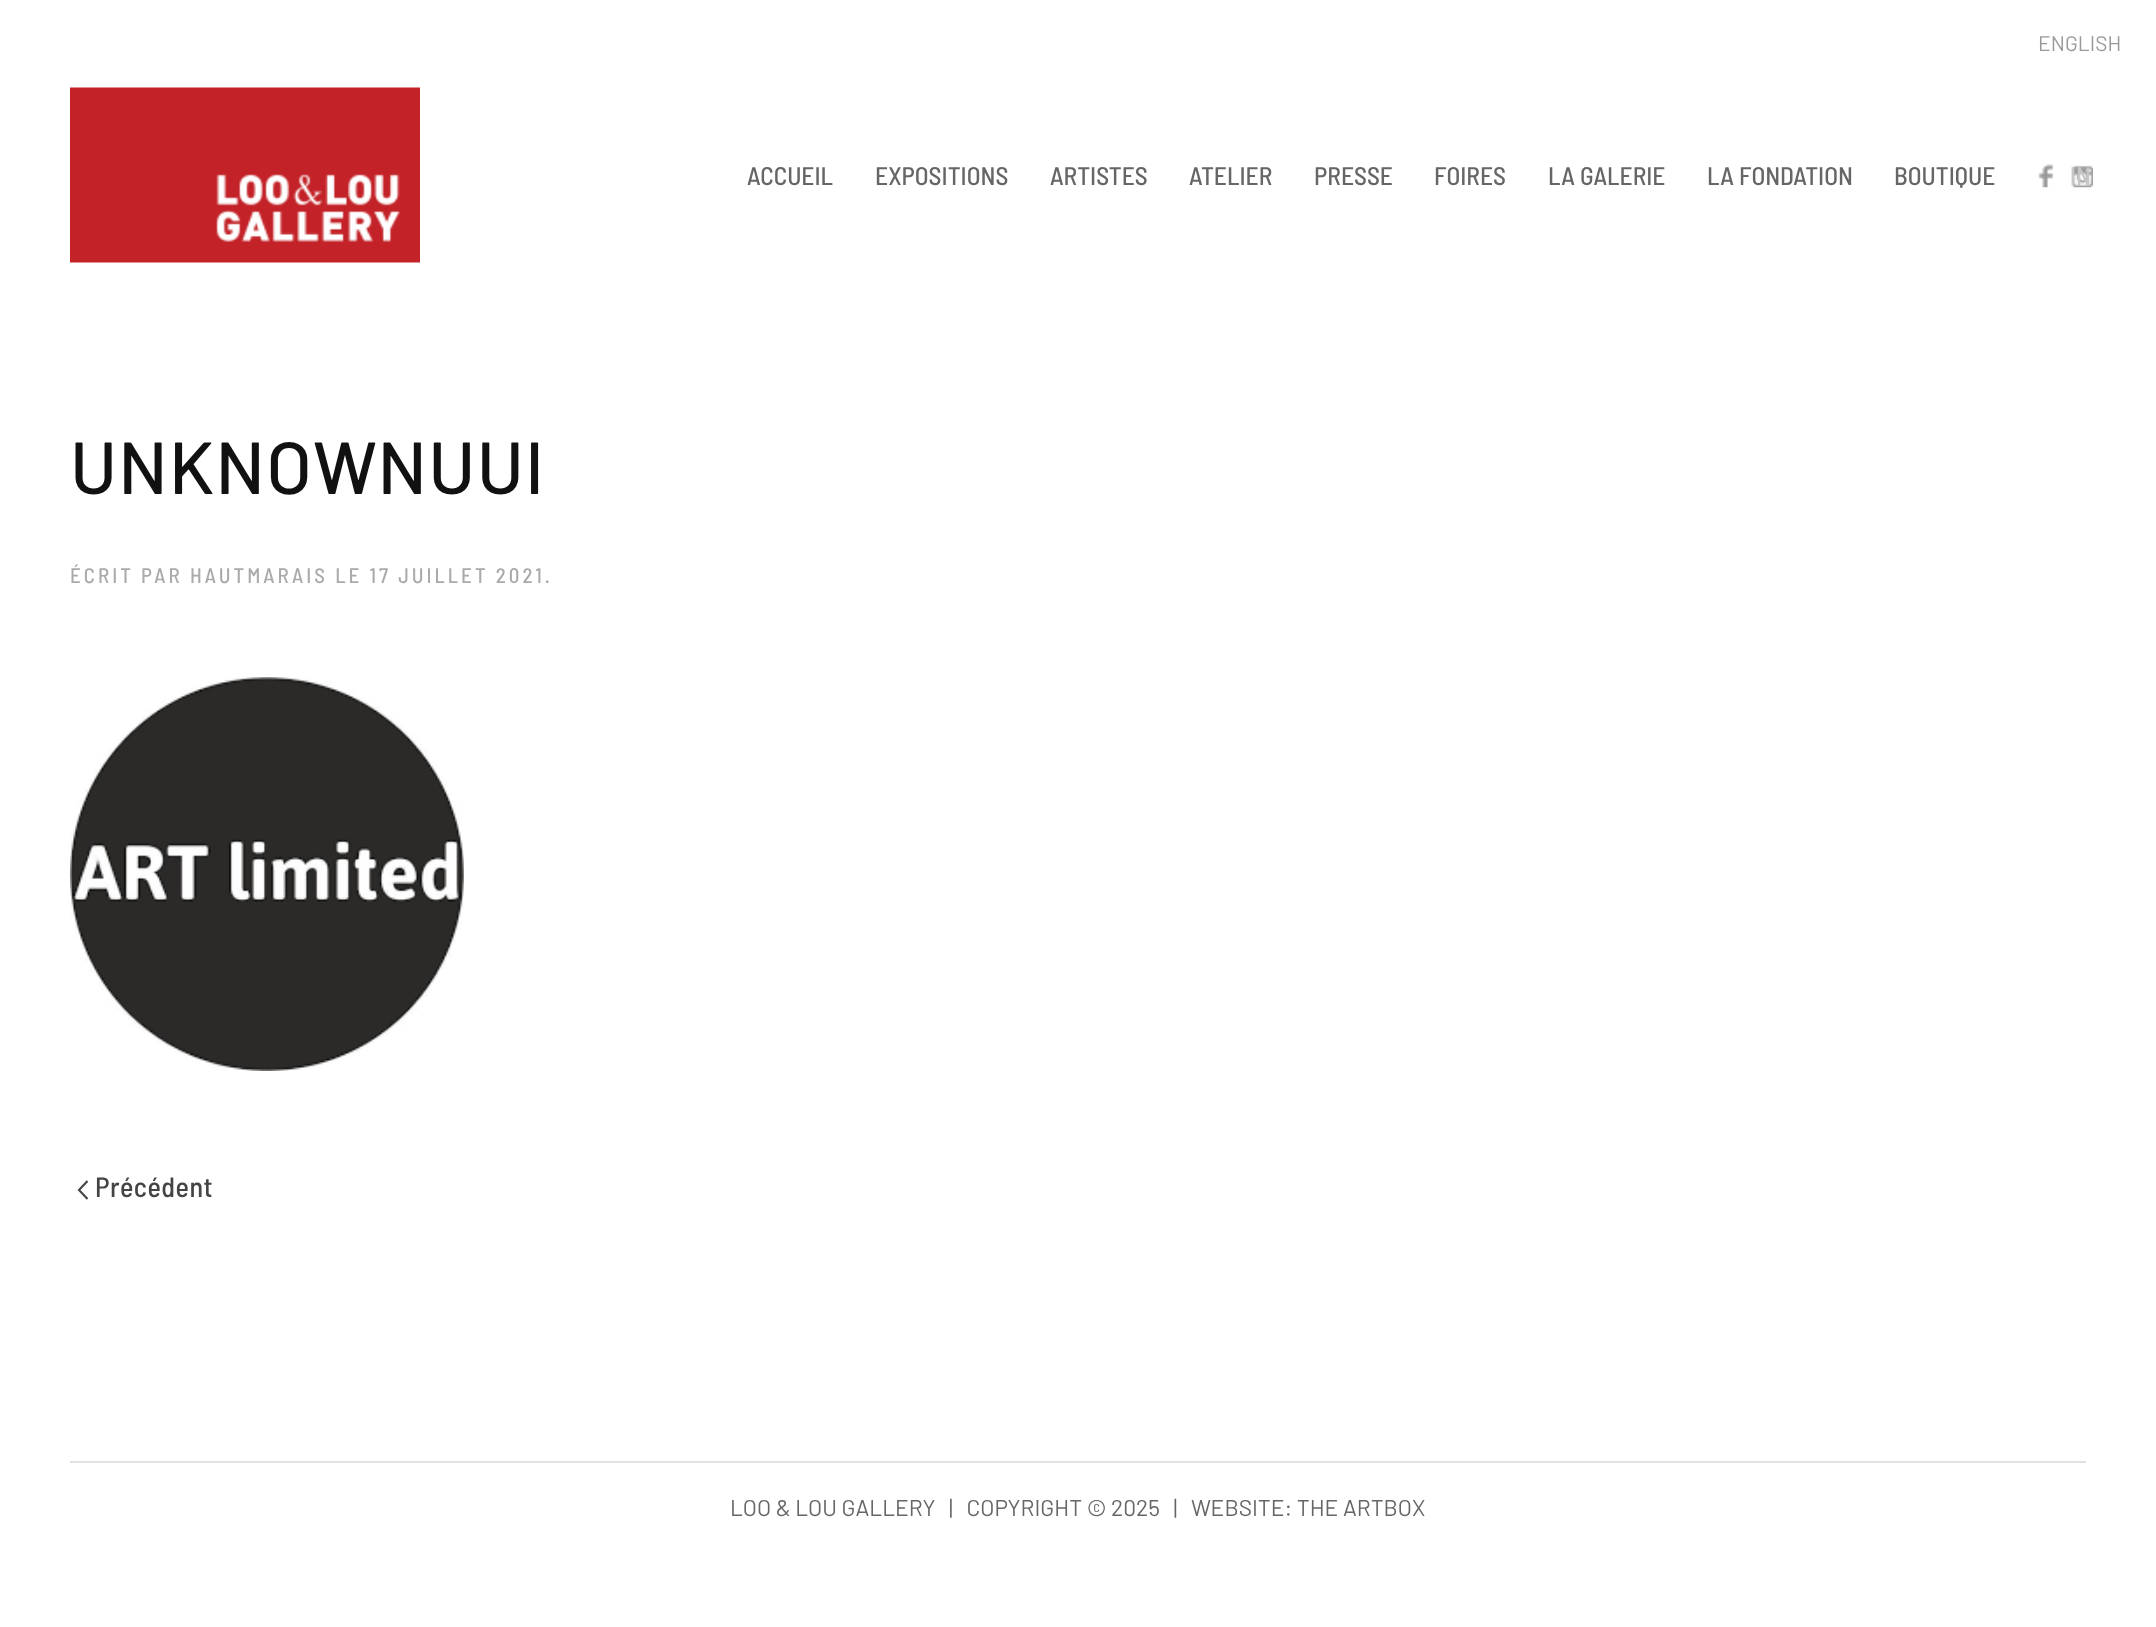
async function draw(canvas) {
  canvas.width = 2156
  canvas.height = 1627
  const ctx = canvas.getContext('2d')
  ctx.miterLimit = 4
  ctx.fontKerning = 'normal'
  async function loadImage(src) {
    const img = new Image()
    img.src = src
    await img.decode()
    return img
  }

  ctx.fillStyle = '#fff'
  ctx.fillRect(0, 0, 2156, 1627)
  ctx.font = '21px Barlow'
  ctx.fillStyle = '#999'
  ctx.fillText('ENGLISH', 2038, 51)
  ctx.drawImage(await loadImage('image0.png'), 70, 87, 350, 176)
  ctx.font = '500 25.5px Barlow Semi Condensed'
  ctx.fillStyle = '#666'
  ctx.fillText('ACCUEIL', 747, 185)
  ctx.fillText('EXPOSITIONS', 875, 185)
  ctx.fillText('ARTISTES', 1050, 185)
  ctx.fillText('ATELIER', 1189, 185)
  ctx.fillText('PRESSE', 1314, 185)
  ctx.fillText('FOIRES', 1434, 185)
  ctx.fillText('LA GALERIE', 1548, 185)
  ctx.fillText('LA FONDATION', 1707, 185)
  ctx.fillText('BOUTIQUE', 1894, 185)
  ctx.drawImage(await loadImage('image1.png'), 2038, 164, 15, 24)
  ctx.drawImage(await loadImage('image2.png'), 2054, 165, 39, 23)
  ctx.fillStyle = '#c7c7c7'
  ctx.fillText('IN', 2070, 185)
  ctx.letterSpacing = '1.25px'
  ctx.font = '500 73.5px Barlow'
  ctx.fillStyle = '#111'
  ctx.fillText('UNKNOWNUUI', 70, 494)
  ctx.letterSpacing = '3px'
  ctx.font = '500 21px Barlow Semi Condensed'
  ctx.fillStyle = '#aaa'
  ctx.fillText('ÉCRIT PAR HAUTMARAIS LE 17 JUILLET 2021.', 70, 583)
  ctx.drawImage(await loadImage('image3.png'), 70, 677, 394, 394)
  ctx.beginPath()
  ctx.moveTo(87.5, 1181)
  ctx.lineTo(79, 1190)
  ctx.lineTo(87.5, 1199)
  ctx.strokeStyle = '#444'
  ctx.lineWidth = 2.1
  ctx.stroke()
  ctx.letterSpacing = '0.5px'
  ctx.font = '500 28px Barlow Semi Condensed'
  ctx.fillStyle = '#444'
  ctx.fillText('Précédent', 95, 1197)
  ctx.fillStyle = '#e1e1e1'
  ctx.fillRect(70, 1461, 2016, 2)
  ctx.letterSpacing = '0px'
  ctx.font = '22.75px Barlow'
  ctx.fillStyle = '#666'
  ctx.fillText('LOO & LOU GALLERY   |   COPYRIGHT © 2025   |   WEBSITE: THE ARTBOX', 730, 1516)
}

draw(document.querySelector('canvas'))
